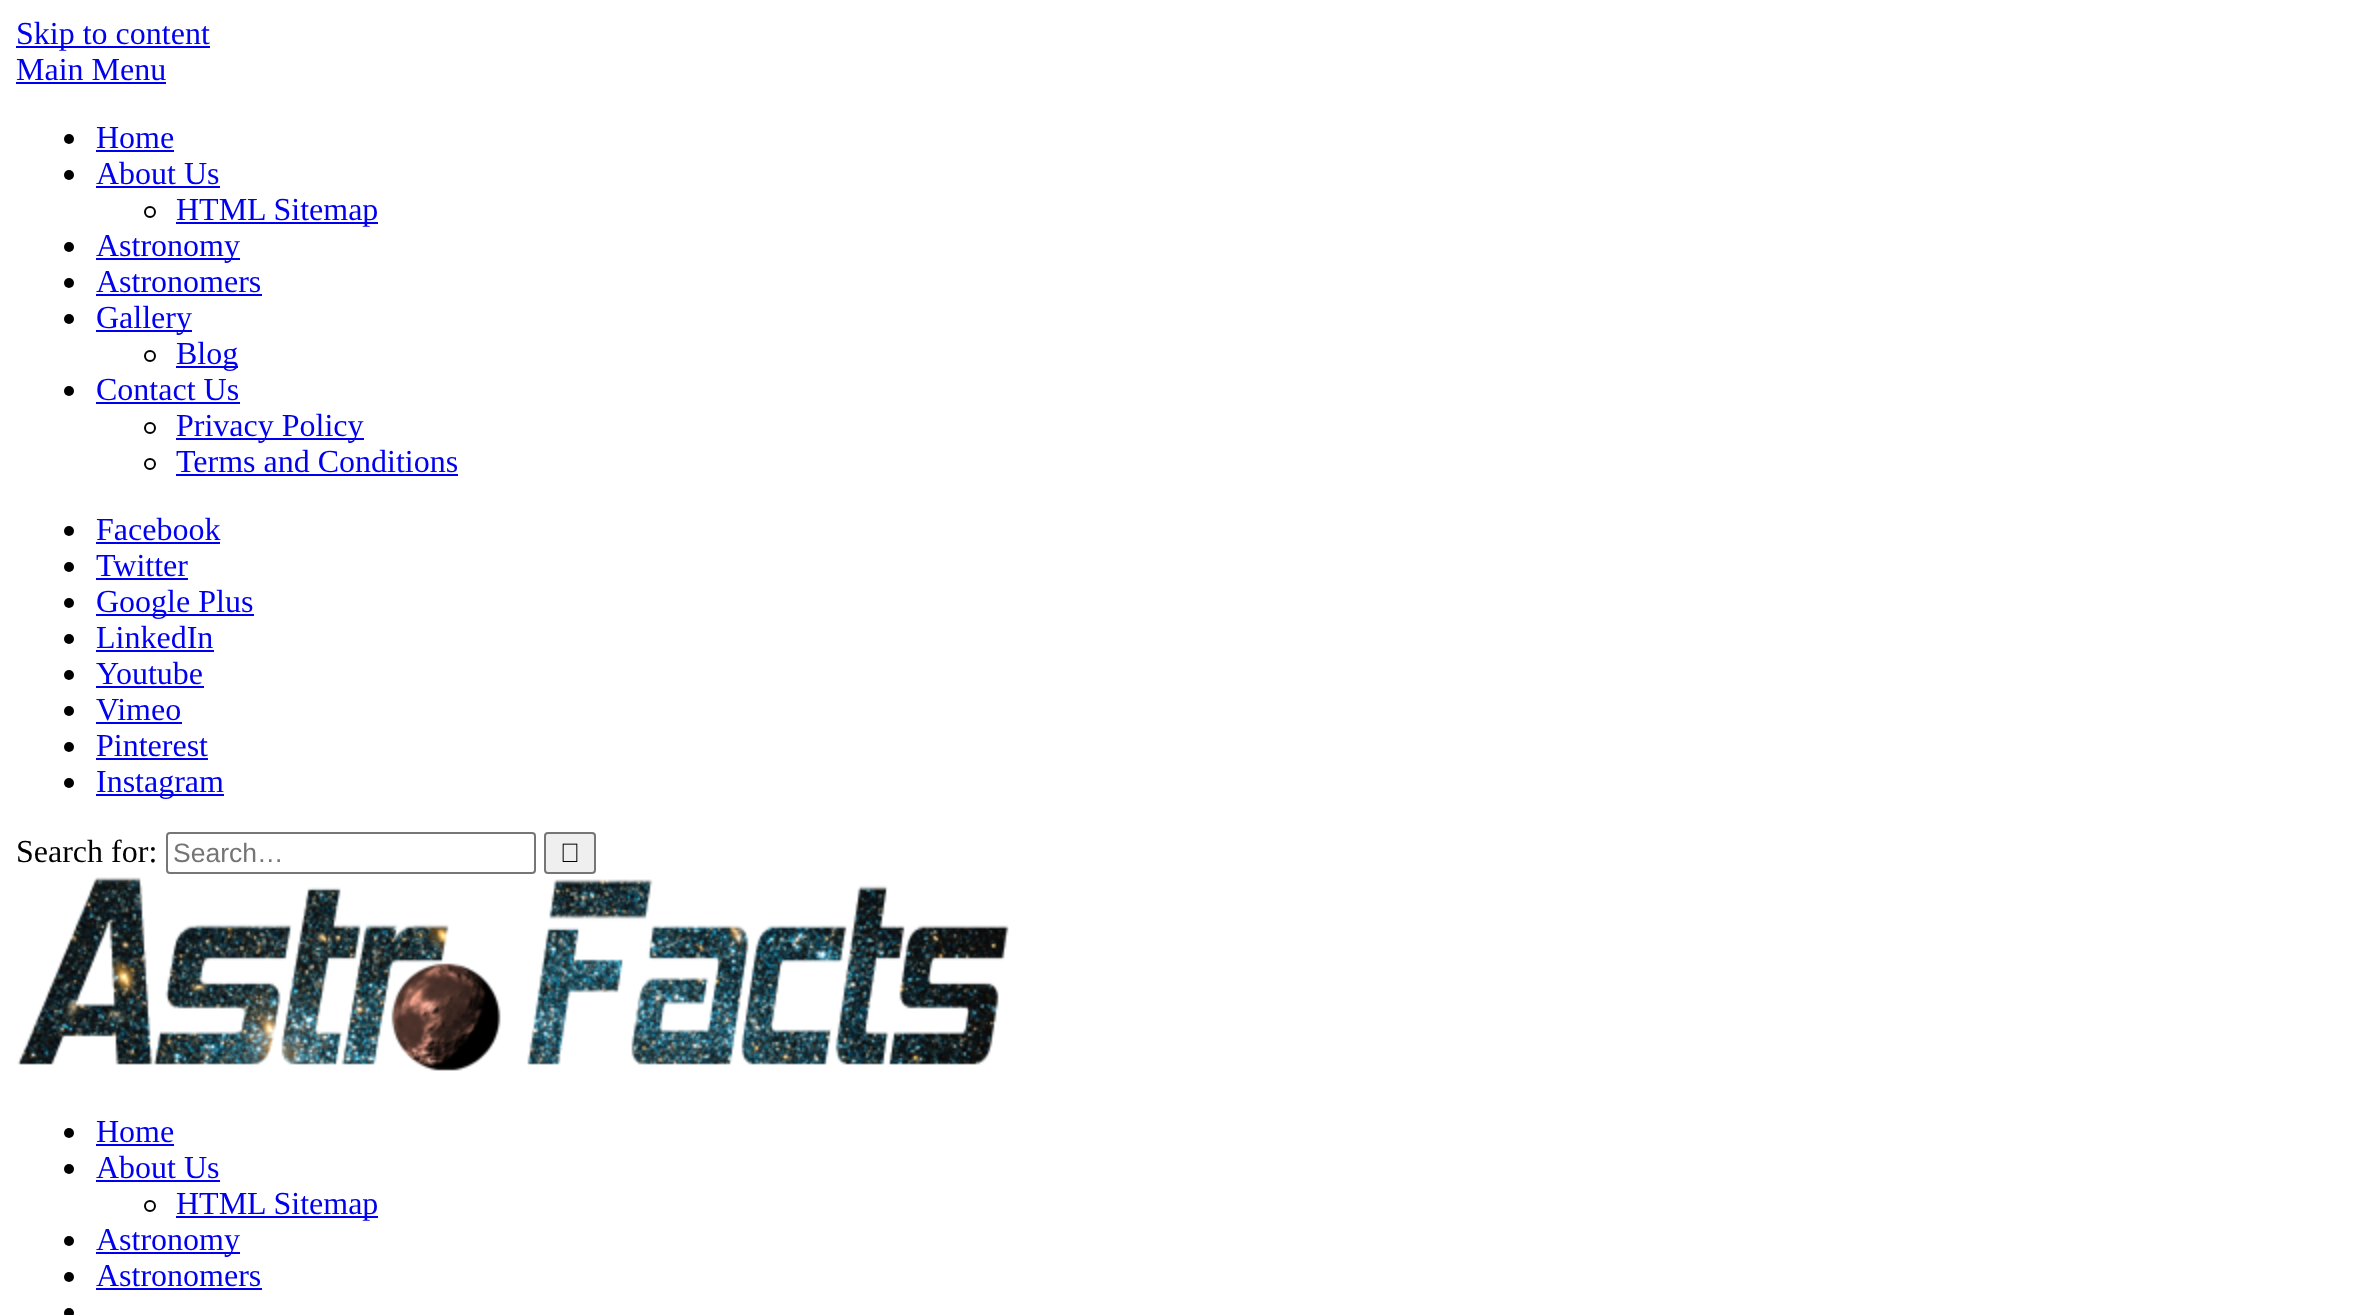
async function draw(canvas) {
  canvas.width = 2374
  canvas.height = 1315
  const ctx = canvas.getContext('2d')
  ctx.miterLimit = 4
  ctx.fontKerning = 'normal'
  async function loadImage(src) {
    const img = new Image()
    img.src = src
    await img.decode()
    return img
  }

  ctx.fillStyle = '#fff'
  ctx.fillRect(0, 0, 2374, 1315)
  ctx.fillStyle = '#00e'
  ctx.fillRect(16, 46, 194, 2)
  ctx.font = '32px Liberation Serif'
  ctx.fillText('Skip to content', 16, 44)
  ctx.fillText('Main Menu', 16, 80)
  ctx.fillRect(16, 82, 150, 2)
  ctx.fillStyle = '#000'
  ctx.beginPath()
  ctx.arc(69, 139, 5, 0, 2 * Math.PI)
  ctx.fill()
  ctx.fillStyle = '#00e'
  ctx.fillText('Home', 96, 148)
  ctx.fillRect(96, 150, 78, 2)
  ctx.fillStyle = '#000'
  ctx.beginPath()
  ctx.arc(69, 175, 5, 0, 2 * Math.PI)
  ctx.fill()
  ctx.fillStyle = '#00e'
  ctx.fillText('About Us', 96, 184)
  ctx.fillRect(96, 186, 124, 2)
  ctx.beginPath()
  ctx.arc(150, 212, 5, 0, 2 * Math.PI)
  ctx.strokeStyle = '#000'
  ctx.lineWidth = 2
  ctx.stroke()
  ctx.fillRect(176, 222, 202, 2)
  ctx.fillText('HTML Sitemap', 176, 220)
  ctx.fillStyle = '#000'
  ctx.beginPath()
  ctx.arc(69, 247, 5, 0, 2 * Math.PI)
  ctx.fill()
  ctx.fillStyle = '#00e'
  ctx.fillRect(96, 258, 144, 2)
  ctx.fillText('Astronomy', 96, 256)
  ctx.fillStyle = '#000'
  ctx.beginPath()
  ctx.arc(69, 283, 5, 0, 2 * Math.PI)
  ctx.fill()
  ctx.fillStyle = '#00e'
  ctx.fillText('Astronomers', 96, 292)
  ctx.fillRect(96, 294, 166, 2)
  ctx.fillStyle = '#000'
  ctx.beginPath()
  ctx.arc(69, 319, 5, 0, 2 * Math.PI)
  ctx.fill()
  ctx.fillStyle = '#00e'
  ctx.fillRect(96, 330, 96, 2)
  ctx.fillText('Gallery', 96, 328)
  ctx.beginPath()
  ctx.arc(150, 356, 5, 0, 2 * Math.PI)
  ctx.stroke()
  ctx.fillRect(176, 366, 62, 2)
  ctx.fillText('Blog', 176, 364)
  ctx.fillStyle = '#000'
  ctx.beginPath()
  ctx.arc(69, 391, 5, 0, 2 * Math.PI)
  ctx.fill()
  ctx.fillStyle = '#00e'
  ctx.fillText('Contact Us', 96, 400)
  ctx.fillRect(96, 402, 144, 2)
  ctx.beginPath()
  ctx.arc(150, 428, 5, 0, 2 * Math.PI)
  ctx.stroke()
  ctx.fillRect(176, 438, 188, 2)
  ctx.fillText('Privacy Policy', 176, 436)
  ctx.beginPath()
  ctx.arc(150, 464, 5, 0, 2 * Math.PI)
  ctx.stroke()
  ctx.fillText('Terms and Conditions', 176, 472)
  ctx.fillRect(176, 474, 282, 2)
  ctx.fillStyle = '#000'
  ctx.beginPath()
  ctx.arc(69, 531, 5, 0, 2 * Math.PI)
  ctx.fill()
  ctx.fillStyle = '#00e'
  ctx.fillText('Facebook', 96, 540)
  ctx.fillRect(96, 542, 124, 2)
  ctx.fillStyle = '#000'
  ctx.beginPath()
  ctx.arc(69, 567, 5, 0, 2 * Math.PI)
  ctx.fill()
  ctx.fillStyle = '#00e'
  ctx.fillText('Twitter', 96, 576)
  ctx.fillRect(96, 578, 92, 2)
  ctx.fillStyle = '#000'
  ctx.beginPath()
  ctx.arc(69, 603, 5, 0, 2 * Math.PI)
  ctx.fill()
  ctx.fillStyle = '#00e'
  ctx.fillRect(96, 614, 158, 2)
  ctx.fillText('Google Plus', 96, 612)
  ctx.fillStyle = '#000'
  ctx.beginPath()
  ctx.arc(69, 639, 5, 0, 2 * Math.PI)
  ctx.fill()
  ctx.fillStyle = '#00e'
  ctx.fillText('LinkedIn', 96, 648)
  ctx.fillRect(96, 650, 118, 2)
  ctx.fillStyle = '#000'
  ctx.beginPath()
  ctx.arc(69, 675, 5, 0, 2 * Math.PI)
  ctx.fill()
  ctx.fillStyle = '#00e'
  ctx.fillText('Youtube', 96, 684)
  ctx.fillRect(96, 686, 108, 2)
  ctx.fillStyle = '#000'
  ctx.beginPath()
  ctx.arc(69, 711, 5, 0, 2 * Math.PI)
  ctx.fill()
  ctx.fillStyle = '#00e'
  ctx.fillText('Vimeo', 96, 720)
  ctx.fillRect(96, 722, 86, 2)
  ctx.fillStyle = '#000'
  ctx.beginPath()
  ctx.arc(69, 747, 5, 0, 2 * Math.PI)
  ctx.fill()
  ctx.fillStyle = '#00e'
  ctx.fillText('Pinterest', 96, 756)
  ctx.fillRect(96, 758, 112, 2)
  ctx.fillStyle = '#000'
  ctx.beginPath()
  ctx.arc(69, 783, 5, 0, 2 * Math.PI)
  ctx.fill()
  ctx.fillStyle = '#00e'
  ctx.fillRect(96, 794, 128, 2)
  ctx.fillText('Instagram', 96, 792)
  ctx.fillStyle = '#000'
  ctx.fillText('Search for:', 16, 862)
  ctx.beginPath()
  ctx.roundRect(167, 833, 368, 40, 3)
  ctx.strokeStyle = '#767676'
  ctx.stroke()
  ctx.font = '26.5px Liberation Sans'
  ctx.fillStyle = '#757575'
  ctx.fillText('Search…', 173, 862)
  ctx.fillStyle = '#efefef'
  ctx.beginPath()
  ctx.roundRect(545, 833, 50, 40, 3)
  ctx.fill()
  ctx.stroke()
  ctx.drawImage(await loadImage('image0.png'), 562, 843, 16, 19)
  ctx.drawImage(await loadImage('image1.png'), 17, 877, 992, 194)
  ctx.fillStyle = '#000'
  ctx.beginPath()
  ctx.arc(69, 1133, 5, 0, 2 * Math.PI)
  ctx.fill()
  ctx.font = '32px Liberation Serif'
  ctx.fillStyle = '#00e'
  ctx.fillText('Home', 96, 1142)
  ctx.fillRect(96, 1144, 78, 2)
  ctx.fillStyle = '#000'
  ctx.beginPath()
  ctx.arc(69, 1169, 5, 0, 2 * Math.PI)
  ctx.fill()
  ctx.fillStyle = '#00e'
  ctx.fillText('About Us', 96, 1178)
  ctx.fillRect(96, 1180, 124, 2)
  ctx.beginPath()
  ctx.arc(150, 1206, 5, 0, 2 * Math.PI)
  ctx.strokeStyle = '#000'
  ctx.stroke()
  ctx.fillRect(176, 1216, 202, 2)
  ctx.fillText('HTML Sitemap', 176, 1214)
  ctx.fillStyle = '#000'
  ctx.beginPath()
  ctx.arc(69, 1241, 5, 0, 2 * Math.PI)
  ctx.fill()
  ctx.fillStyle = '#00e'
  ctx.fillRect(96, 1252, 144, 2)
  ctx.fillText('Astronomy', 96, 1250)
  ctx.fillStyle = '#000'
  ctx.beginPath()
  ctx.arc(69, 1277, 5, 0, 2 * Math.PI)
  ctx.fill()
  ctx.fillStyle = '#00e'
  ctx.fillText('Astronomers', 96, 1286)
  ctx.fillRect(96, 1288, 166, 2)
  ctx.fillStyle = '#000'
  ctx.beginPath()
  ctx.arc(69, 1313, 5, 0, 2 * Math.PI)
  ctx.fill()
}

draw(document.querySelector('canvas'))
